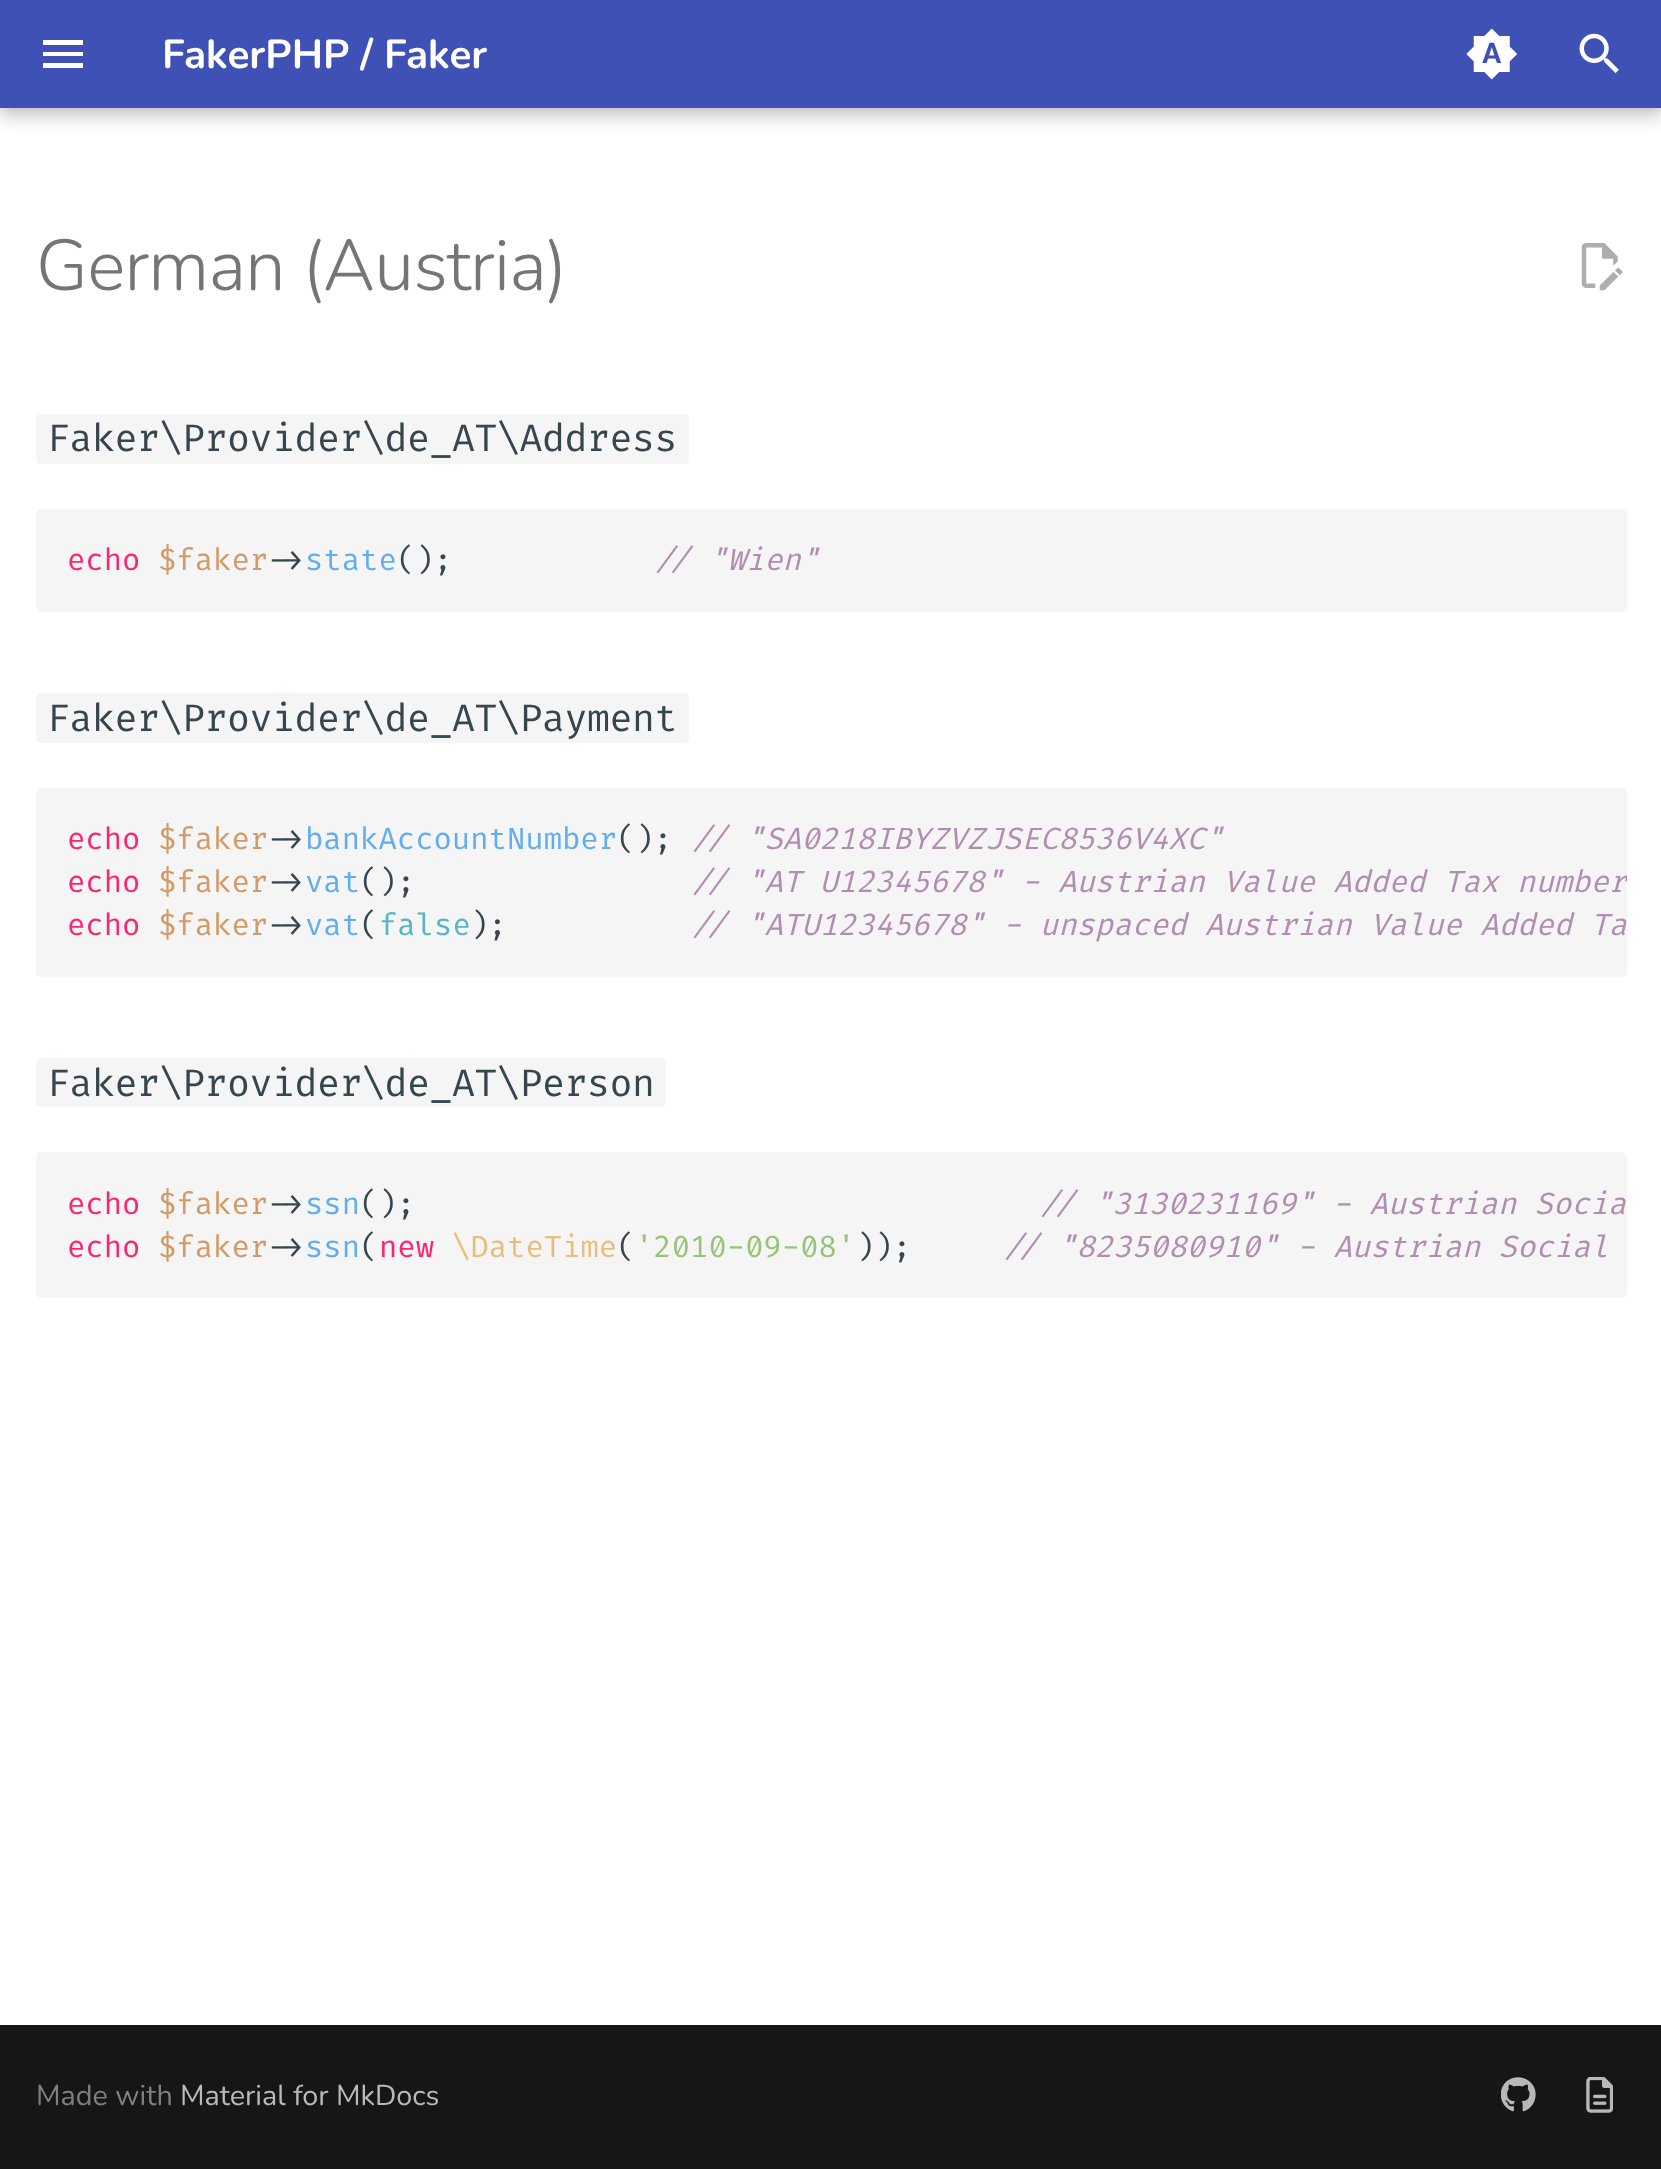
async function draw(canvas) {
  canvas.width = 1661
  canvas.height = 2169
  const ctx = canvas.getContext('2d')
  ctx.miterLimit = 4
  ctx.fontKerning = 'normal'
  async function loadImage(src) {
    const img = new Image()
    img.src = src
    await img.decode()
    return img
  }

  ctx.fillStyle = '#fff'
  ctx.fillRect(0, 0, 1661, 2169)
  ctx.fillStyle = '#00000033'
  ctx.filter = 'blur(9px)'
  ctx.beginPath()
  ctx.rect(0, 9, 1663, 108)
  ctx.fill()
  ctx.filter = 'none'
  ctx.fillStyle = '#0000001a'
  ctx.filter = 'blur(4.5px)'
  ctx.beginPath()
  ctx.rect(0, 0, 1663, 108)
  ctx.fill()
  ctx.filter = 'none'
  ctx.fillStyle = '#4051b5'
  ctx.fillRect(0, 0, 1661, 108)
  ctx.fillStyle = '#fff'
  ctx.beginPath()
  ctx.moveTo(43, 40)
  ctx.lineTo(83, 40)
  ctx.lineTo(83, 45)
  ctx.lineTo(43, 45)
  ctx.closePath()
  ctx.moveTo(43, 52)
  ctx.lineTo(83, 52)
  ctx.lineTo(83, 56)
  ctx.lineTo(43, 56)
  ctx.closePath()
  ctx.moveTo(43, 63)
  ctx.lineTo(83, 63)
  ctx.lineTo(83, 68)
  ctx.lineTo(43, 68)
  ctx.closePath()
  ctx.fill()
  ctx.font = 'bold 40.5px Nunito'
  ctx.fillText('FakerPHP / Faker', 162, 68)
  ctx.drawImage(await loadImage('image0.png'), 1466, 28, 52, 52)
  ctx.drawImage(await loadImage('image1.png'), 1579, 33, 40, 40)
  ctx.letterSpacing = '-0.75px'
  ctx.font = '300 72px Nunito'
  ctx.fillStyle = '#757575'
  ctx.fillText('German (Austria)', 36, 290)
  ctx.drawImage(await loadImage('image2.png'), 1581, 243, 42, 48)
  ctx.fillStyle = '#f5f5f5'
  ctx.beginPath()
  ctx.roundRect(36, 414, 653, 50, 5)
  ctx.fill()
  ctx.letterSpacing = '-0.45px'
  ctx.font = '38.25px Fira Code'
  ctx.fillStyle = '#36464e'
  ctx.fillText('Faker\\Provider\\de_AT\\Address', 47, 451)
  ctx.fillStyle = '#f5f5f5'
  ctx.beginPath()
  ctx.roundRect(36, 509, 1591, 103, 5)
  ctx.fill()
  ctx.letterSpacing = '0px'
  ctx.font = '30.6px Fira Code'
  ctx.fillStyle = '#f92672'
  ctx.fillText('echo', 67, 570)
  ctx.fillStyle = '#d19a66'
  ctx.fillText('$faker', 158, 570)
  ctx.fillStyle = '#36464e'
  ctx.fillText('->', 268, 570)
  ctx.fillStyle = '#61aeee'
  ctx.fillText('state', 305, 570)
  ctx.fillStyle = '#36464e'
  ctx.fillText('();', 397, 570)
  ctx.font = 'italic 30.6px Fira Code'
  ctx.fillStyle = '#b18eb1'
  ctx.fillText('// "Wien"', 654, 570)
  ctx.fillStyle = '#f5f5f5'
  ctx.beginPath()
  ctx.roundRect(36, 693, 653, 50, 5)
  ctx.fill()
  ctx.letterSpacing = '-0.45px'
  ctx.font = '38.25px Fira Code'
  ctx.fillStyle = '#36464e'
  ctx.fillText('Faker\\Provider\\de_AT\\Payment', 47, 731)
  ctx.fillStyle = '#f5f5f5'
  ctx.beginPath()
  ctx.roundRect(36, 788, 1591, 189, 5)
  ctx.fill()
  ctx.letterSpacing = '0px'
  ctx.font = '30.6px Fira Code'
  ctx.fillStyle = '#f92672'
  ctx.fillText('echo', 67, 849)
  ctx.fillStyle = '#d19a66'
  ctx.fillText('$faker', 158, 849)
  ctx.fillStyle = '#36464e'
  ctx.fillText('->', 268, 849)
  ctx.fillStyle = '#61aeee'
  ctx.fillText('bankAccountNumber', 305, 849)
  ctx.fillStyle = '#36464e'
  ctx.fillText('();', 617, 849)
  ctx.font = 'italic 30.6px Fira Code'
  ctx.fillStyle = '#b18eb1'
  ctx.fillText('// "SA0218IBYZVZJSEC8536V4XC"', 691, 849)
  ctx.font = '30.6px Fira Code'
  ctx.fillStyle = '#f92672'
  ctx.fillText('echo', 67, 892)
  ctx.fillStyle = '#d19a66'
  ctx.fillText('$faker', 158, 892)
  ctx.fillStyle = '#36464e'
  ctx.fillText('->', 268, 892)
  ctx.fillStyle = '#61aeee'
  ctx.fillText('vat', 305, 892)
  ctx.fillStyle = '#36464e'
  ctx.fillText('();', 360, 892)
  ctx.save()
  ctx.beginPath()
  ctx.roundRect(36, 788, 1591, 189, 5)
  ctx.clip()
  ctx.font = 'italic 30.6px Fira Code'
  ctx.fillStyle = '#b18eb1'
  ctx.fillText('// "AT U12345678" - Austrian Value Added Tax number', 691, 892)
  ctx.restore()
  ctx.fillStyle = '#f92672'
  ctx.fillText('echo', 67, 935)
  ctx.fillStyle = '#d19a66'
  ctx.fillText('$faker', 158, 935)
  ctx.fillStyle = '#36464e'
  ctx.fillText('->', 268, 935)
  ctx.fillStyle = '#61aeee'
  ctx.fillText('vat', 305, 935)
  ctx.fillStyle = '#36464e'
  ctx.fillText('(', 360, 935)
  ctx.fillStyle = '#56b6c2'
  ctx.fillText('false', 379, 935)
  ctx.fillStyle = '#36464e'
  ctx.fillText(');', 470, 935)
  ctx.font = 'italic 30.6px Fira Code'
  ctx.fillStyle = '#b18eb1'
  ctx.fillText('// "ATU12345678" - unspaced Austrian Value Added Ta', 691, 935)
  ctx.fillStyle = '#f5f5f5'
  ctx.beginPath()
  ctx.roundRect(36, 1058, 630, 49, 5)
  ctx.fill()
  ctx.letterSpacing = '-0.45px'
  ctx.font = '38.25px Fira Code'
  ctx.fillStyle = '#36464e'
  ctx.fillText('Faker\\Provider\\de_AT\\Person', 47, 1096)
  ctx.fillStyle = '#f5f5f5'
  ctx.beginPath()
  ctx.roundRect(36, 1152, 1591, 146, 5)
  ctx.fill()
  ctx.letterSpacing = '0px'
  ctx.font = '30.6px Fira Code'
  ctx.fillStyle = '#f92672'
  ctx.fillText('echo', 67, 1214)
  ctx.fillStyle = '#d19a66'
  ctx.fillText('$faker', 158, 1214)
  ctx.fillStyle = '#36464e'
  ctx.fillText('->', 268, 1214)
  ctx.fillStyle = '#61aeee'
  ctx.fillText('ssn', 305, 1214)
  ctx.fillStyle = '#36464e'
  ctx.fillText('();', 360, 1214)
  ctx.font = 'italic 30.6px Fira Code'
  ctx.fillStyle = '#b18eb1'
  ctx.fillText('// "3130231169" - Austrian Socia', 1039, 1214)
  ctx.font = '30.6px Fira Code'
  ctx.fillStyle = '#f92672'
  ctx.fillText('echo', 67, 1257)
  ctx.fillStyle = '#d19a66'
  ctx.fillText('$faker', 158, 1257)
  ctx.fillStyle = '#36464e'
  ctx.fillText('->', 268, 1257)
  ctx.fillStyle = '#61aeee'
  ctx.fillText('ssn', 305, 1257)
  ctx.fillStyle = '#36464e'
  ctx.fillText('(', 360, 1257)
  ctx.fillStyle = '#f92672'
  ctx.fillText('new', 379, 1257)
  ctx.fillStyle = '#e6c07b'
  ctx.fillText('\\DateTime', 452, 1257)
  ctx.fillStyle = '#36464e'
  ctx.fillText('(', 617, 1257)
  ctx.fillStyle = '#98c379'
  ctx.fillText('\'2010-09-08\'', 635, 1257)
  ctx.fillStyle = '#36464e'
  ctx.fillText('));', 856, 1257)
  ctx.font = 'italic 30.6px Fira Code'
  ctx.fillStyle = '#b18eb1'
  ctx.fillText('// "8235080910" - Austrian Social', 1003, 1257)
  ctx.fillStyle = '#161616'
  ctx.fillRect(0, 2025, 1661, 144)
  ctx.font = '28.75px Nunito'
  ctx.fillStyle = '#7f7f7f'
  ctx.fillText('Made with', 36, 2105)
  ctx.fillStyle = '#b9b9b9'
  ctx.fillText('Material for MkDocs', 180, 2105)
  ctx.drawImage(await loadImage('image3.png'), 1501, 2077, 35, 35)
  ctx.drawImage(await loadImage('image4.png'), 1586, 2077, 27, 36)
}

draw(document.querySelector('canvas'))
